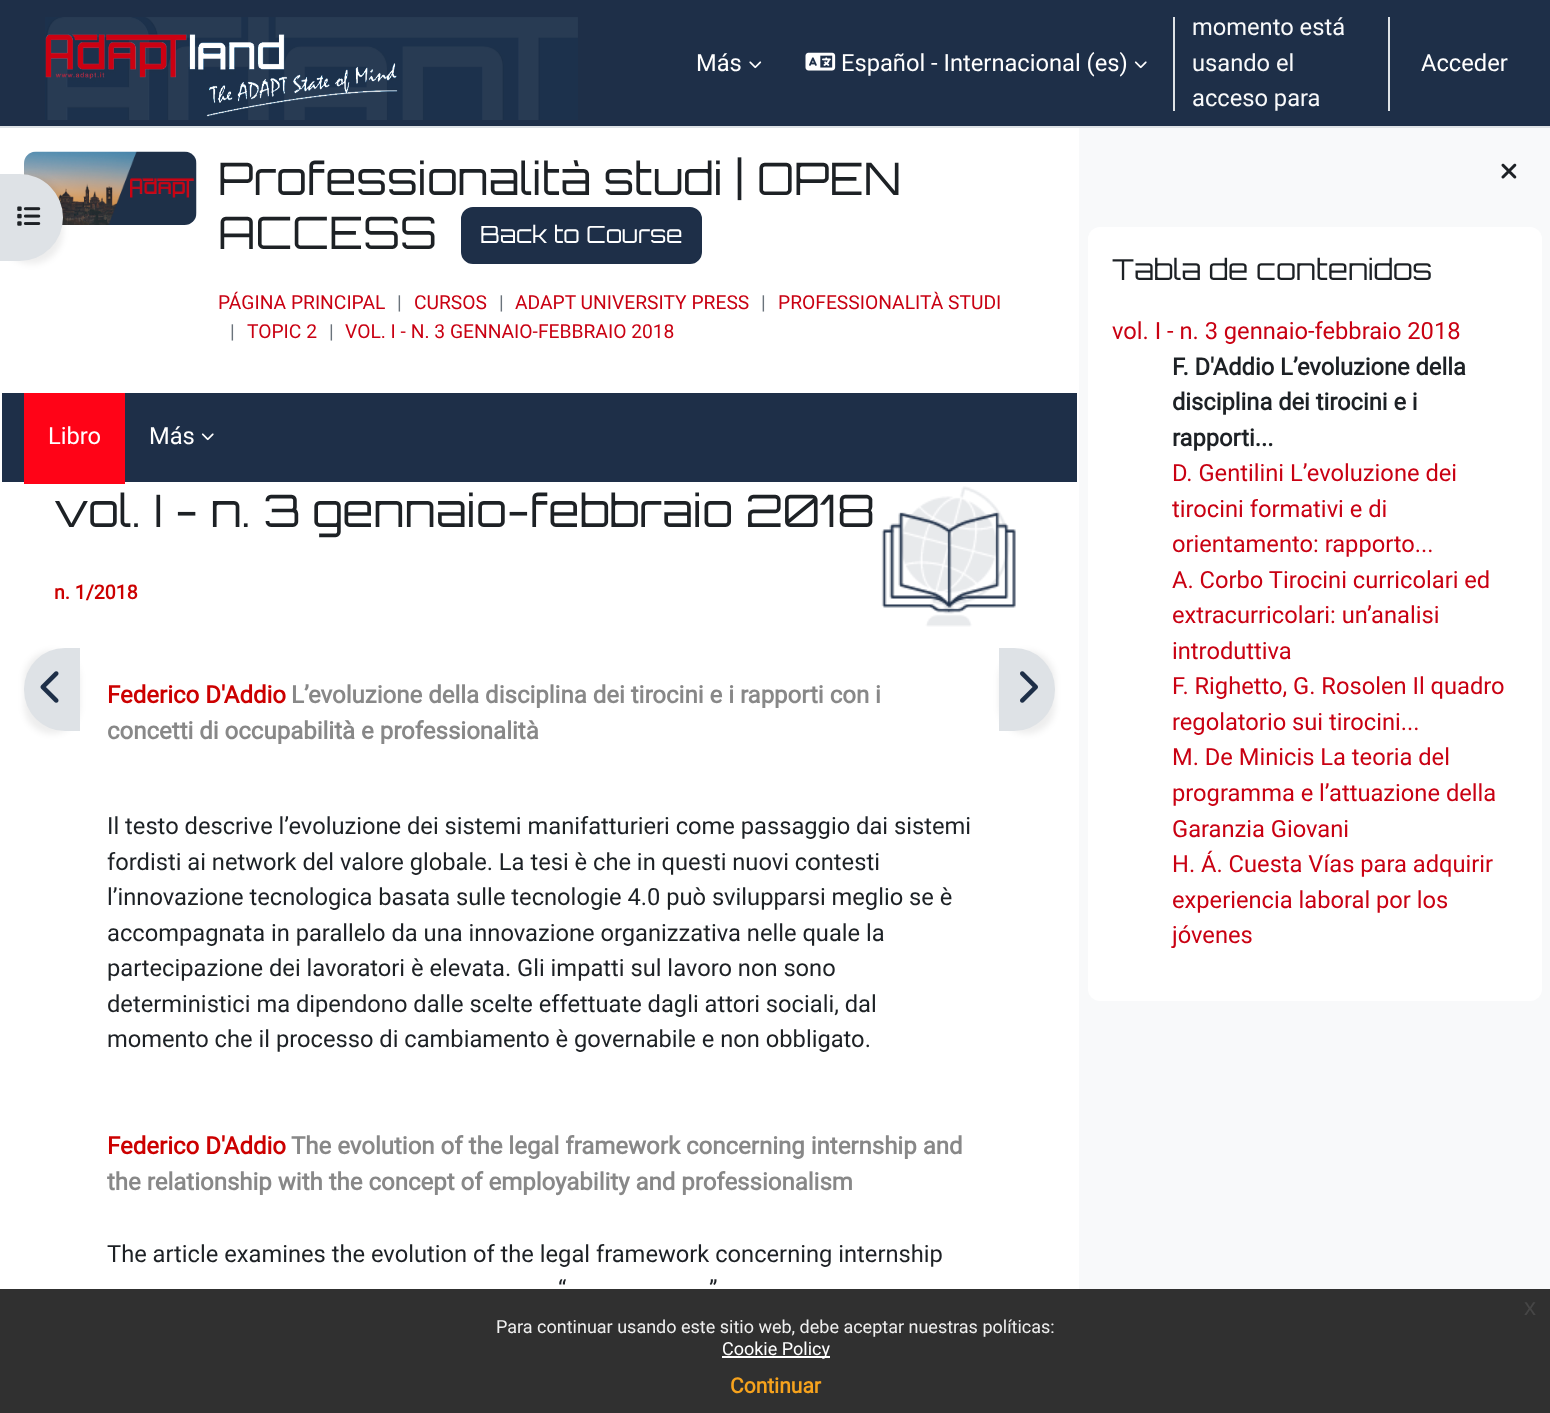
async function draw(canvas) {
  canvas.width = 1550
  canvas.height = 1413
  const ctx = canvas.getContext('2d')
  ctx.miterLimit = 4
  ctx.fontKerning = 'normal'
  async function loadImage(src) {
    const img = new Image()
    img.src = src
    await img.decode()
    return img
  }

  ctx.fillStyle = '#fff'
  ctx.fillRect(0, 0, 1550, 1413)
  ctx.fillStyle = '#1e2f48'
  ctx.fillRect(0, 0, 1550, 126)
  ctx.fillStyle = '#dee2e6'
  ctx.fillRect(0, 126, 1550, 2)
  ctx.drawImage(await loadImage('image0.png'), 45, 17, 533, 103)
  ctx.font = '23.7px Roboto'
  ctx.fillStyle = '#fff'
  ctx.fillText('Más', 696, 71)
  ctx.drawImage(await loadImage('image1.png'), 749, 61, 13, 8)
  ctx.drawImage(await loadImage('image2.png'), 805, 52, 31, 19)
  ctx.fillText('Español - Internacional (es)', 841, 71)
  ctx.drawImage(await loadImage('image3.png'), 1134, 61, 13, 8)
  ctx.fillStyle = '#dee2e6'
  ctx.fillRect(1173, 17, 2, 94)
  ctx.fillStyle = '#f8f9fa'
  ctx.fillText('momento está', 1192, 35)
  ctx.fillStyle = '#dee2e6'
  ctx.fillRect(1388, 17, 2, 94)
  ctx.fillStyle = '#f8f9fa'
  ctx.fillText('usando el', 1192, 71)
  ctx.fillStyle = '#fff'
  ctx.fillText('Acceder', 1421, 71)
  ctx.fillStyle = '#f8f9fa'
  ctx.fillText('acceso para', 1192, 106)
  ctx.drawImage(await loadImage('image4.png'), 24, 151, 173, 74)
  ctx.font = '44.75px Orbitron'
  ctx.fillStyle = '#1d2125'
  ctx.fillText('Professionalità studi | OPEN', 218, 195)
  ctx.fillText('ACCESS', 218, 249)
  ctx.fillStyle = '#1e2f48'
  ctx.beginPath()
  ctx.roundRect(462, 208, 239, 55, 11)
  ctx.fill()
  ctx.strokeStyle = '#1e2f48'
  ctx.lineWidth = 2
  ctx.stroke()
  ctx.font = '23.7px Orbitron'
  ctx.fillStyle = '#fff'
  ctx.fillText('Back to Course', 480, 243)
  ctx.font = '19.25px Roboto'
  ctx.fillStyle = '#c90112'
  ctx.fillText('PÁGINA PRINCIPAL', 218, 309)
  ctx.fillStyle = '#6a737b'
  ctx.fillText('|', 397, 309)
  ctx.fillStyle = '#c90112'
  ctx.fillText('CURSOS', 414, 309)
  ctx.fillStyle = '#6a737b'
  ctx.fillText('|', 499, 309)
  ctx.fillStyle = '#c90112'
  ctx.fillText('ADAPT UNIVERSITY PRESS', 515, 309)
  ctx.fillStyle = '#6a737b'
  ctx.fillText('|', 761, 309)
  ctx.fillStyle = '#c90112'
  ctx.fillText('PROFESSIONALITÀ STUDI', 778, 309)
  ctx.fillStyle = '#6a737b'
  ctx.fillText('|', 230, 338)
  ctx.fillStyle = '#c90112'
  ctx.fillText('TOPIC 2', 247, 338)
  ctx.fillStyle = '#6a737b'
  ctx.fillText('|', 329, 338)
  ctx.fillStyle = '#c90112'
  ctx.fillText('VOL. I - N. 3 GENNAIO-FEBBRAIO 2018', 345, 338)
  ctx.fillStyle = '#00000012'
  ctx.filter = 'blur(3px)'
  ctx.beginPath()
  ctx.roundRect(0, 177, 63, 87, 44)
  ctx.fill()
  ctx.filter = 'none'
  ctx.fillStyle = '#dee2e6'
  ctx.beginPath()
  ctx.roundRect(0, 174, 63, 87, [0, 43.5, 43.5, 0])
  ctx.fill()
  ctx.drawImage(await loadImage('image5.png'), 17, 206, 24, 20)
  ctx.fillStyle = '#1e2f48'
  ctx.fillRect(2, 393, 1075, 89)
  ctx.fillStyle = '#ff0317'
  ctx.fillRect(24, 393, 101, 91)
  ctx.font = '23.7px Roboto'
  ctx.fillStyle = '#fff'
  ctx.fillText('Libro', 48, 444)
  ctx.fillText('Más', 149, 444)
  ctx.drawImage(await loadImage('image3.png'), 201, 433, 13, 8)
  ctx.drawImage(await loadImage('image6.png'), 881, 486, 135, 141)
  ctx.font = '44.75px Orbitron'
  ctx.fillStyle = '#1d2125'
  ctx.fillText('vol. I - n. 3 gennaio-febbraio 2018', 54, 527)
  ctx.font = 'bold 19.5px Roboto'
  ctx.fillStyle = '#c00'
  ctx.fillText('n. 1/2018', 54, 599)
  ctx.fillStyle = '#00000012'
  ctx.filter = 'blur(3px)'
  ctx.beginPath()
  ctx.roundRect(24, 651, 56, 83, 41)
  ctx.fill()
  ctx.filter = 'none'
  ctx.fillStyle = '#dee2e6'
  ctx.beginPath()
  ctx.roundRect(24, 648, 56, 83, [41, 0, 0, 41])
  ctx.fill()
  ctx.drawImage(await loadImage('image7.png'), 40, 671, 19, 32)
  ctx.fillStyle = '#00000012'
  ctx.filter = 'blur(3px)'
  ctx.beginPath()
  ctx.roundRect(999, 651, 56, 83, 41)
  ctx.fill()
  ctx.filter = 'none'
  ctx.fillStyle = '#dee2e6'
  ctx.beginPath()
  ctx.roundRect(999, 648, 56, 83, [0, 41, 41, 0])
  ctx.fill()
  ctx.drawImage(await loadImage('image8.png'), 1020, 671, 18, 32)
  ctx.font = 'bold 24px Roboto'
  ctx.fillStyle = '#c00'
  ctx.fillText('Federico D\'Addio', 107, 703)
  ctx.fillStyle = '#888'
  ctx.fillText('L’evoluzione della disciplina dei tirocini e i rapporti con i', 291, 703)
  ctx.fillText('concetti di occupabilità e professionalità', 107, 739)
  ctx.font = '23.7px Roboto'
  ctx.fillStyle = '#1d2125'
  ctx.fillText('Il testo descrive l’evoluzione dei sistemi manifatturieri come passaggio dai sistemi', 107, 834)
  ctx.fillText('fordisti ai network del valore globale. La tesi è che in questi nuovi contesti', 107, 870)
  ctx.fillText('l’innovazione tecnologica basata sulle tecnologie 4.0 può svilupparsi meglio se è', 107, 905)
  ctx.fillText('accompagnata in parallelo da una innovazione organizzativa nelle quale la', 107, 941)
  ctx.fillText('partecipazione dei lavoratori è elevata. Gli impatti sul lavoro non sono', 107, 976)
  ctx.fillText('deterministici ma dipendono dalle scelte effettuate dagli attori sociali, dal', 107, 1012)
  ctx.fillText('momento che il processo di cambiamento è governabile e non obbligato.', 107, 1047)
  ctx.font = 'bold 24px Roboto'
  ctx.fillStyle = '#c00'
  ctx.fillText('Federico D\'Addio', 107, 1154)
  ctx.fillStyle = '#888'
  ctx.fillText('The evolution of the legal framework concerning internship and', 291, 1154)
  ctx.fillText('the relationship with the concept of employability and professionalism', 107, 1190)
  ctx.font = '23.7px Roboto'
  ctx.fillStyle = '#1d2125'
  ctx.fillText('The article examines the evolution of the legal framework concerning internship', 107, 1262)
  ctx.fillText('“', 558, 1297)
  ctx.fillText('”', 709, 1297)
  ctx.fillStyle = '#f8f9fa'
  ctx.fillRect(1079, 128, 471, 1285)
  ctx.drawImage(await loadImage('image9.png'), 1501, 163, 16, 16)
  ctx.fillStyle = '#fff'
  ctx.beginPath()
  ctx.roundRect(1088, 227, 454, 774, 12)
  ctx.fill()
  ctx.font = '29px Orbitron'
  ctx.fillStyle = '#1d2125'
  ctx.fillText('Tabla de contenidos', 1112, 280)
  ctx.font = '23.7px Roboto'
  ctx.fillStyle = '#c90112'
  ctx.fillText('vol. I - n. 3 gennaio-febbraio 2018', 1112, 339)
  ctx.font = 'bold 23.7px Roboto'
  ctx.fillStyle = '#1d2125'
  ctx.fillText('F. D\'Addio L’evoluzione della', 1172, 375)
  ctx.fillText('disciplina dei tirocini e i', 1172, 410)
  ctx.fillText('rapporti...', 1172, 446)
  ctx.font = '23.7px Roboto'
  ctx.fillStyle = '#c90112'
  ctx.fillText('D. Gentilini L’evoluzione dei', 1172, 481)
  ctx.fillText('tirocini formativi e di', 1172, 517)
  ctx.fillText('orientamento: rapporto...', 1172, 552)
  ctx.fillText('A. Corbo Tirocini curricolari ed', 1172, 588)
  ctx.fillText('extracurricolari: un’analisi', 1172, 623)
  ctx.fillText('introduttiva', 1172, 659)
  ctx.fillText('F. Righetto, G. Rosolen Il quadro', 1172, 694)
  ctx.fillText('regolatorio sui tirocini...', 1172, 730)
  ctx.fillText('M. De Minicis La teoria del', 1172, 765)
  ctx.fillText('programma e l’attuazione della', 1172, 801)
  ctx.fillText('Garanzia Giovani', 1172, 837)
  ctx.fillText('H. Á. Cuesta Vías para adquirir', 1172, 872)
  ctx.fillText('experiencia laboral por los', 1172, 908)
  ctx.fillText('jóvenes', 1172, 943)
  ctx.fillStyle = '#191919e6'
  ctx.fillRect(0, 1289, 1550, 124)
  ctx.font = '24px Liberation Sans'
  ctx.fillStyle = '#464646'
  ctx.fillText('x', 1524, 1315)
  ctx.font = '18px Roboto'
  ctx.fillStyle = '#efefef'
  ctx.fillText('Para continuar usando este sitio web, debe aceptar nuestras políticas:', 496, 1333)
  ctx.fillStyle = '#fff'
  ctx.fillRect(722, 1356, 108, 2)
  ctx.fillText('Cookie Policy', 722, 1355)
  ctx.font = 'bold 21px Roboto'
  ctx.fillStyle = '#f6a21d'
  ctx.fillText('Continuar', 730, 1393)
}

draw(document.querySelector('canvas'))
